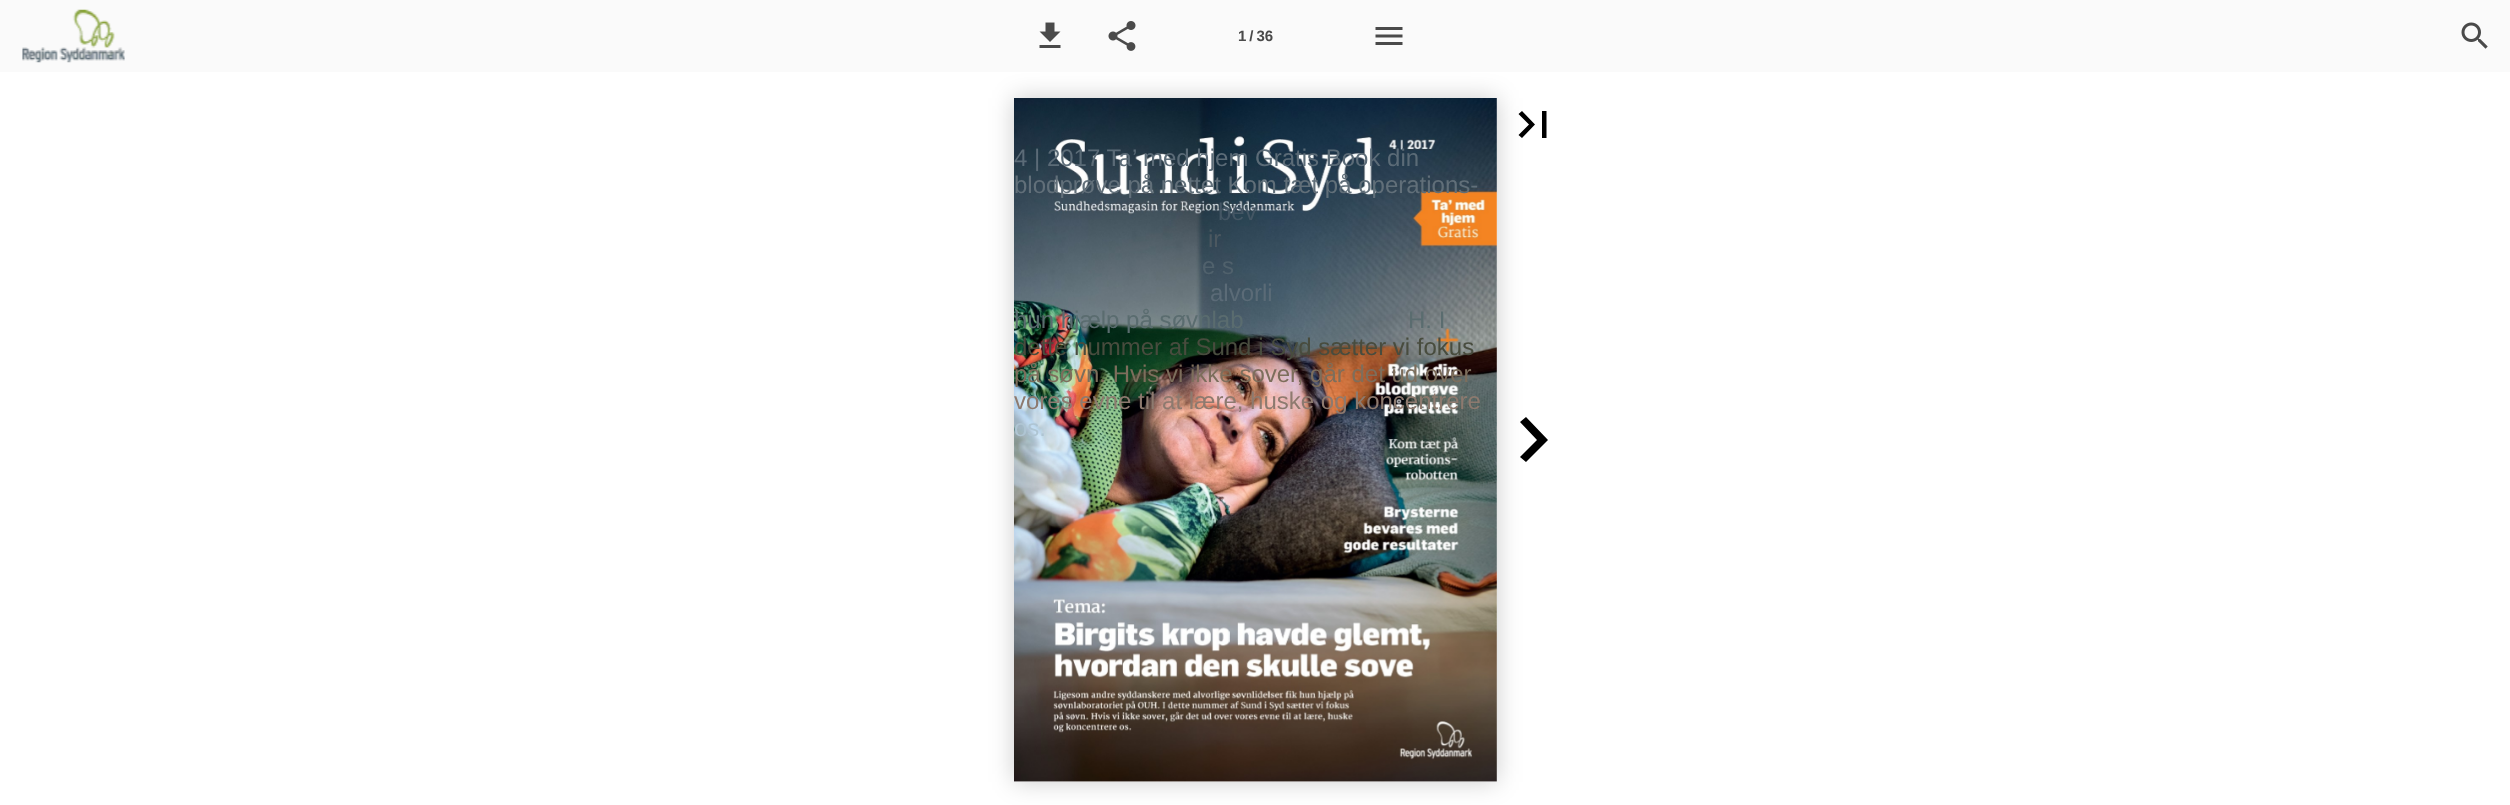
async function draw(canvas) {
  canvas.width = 2510
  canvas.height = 805
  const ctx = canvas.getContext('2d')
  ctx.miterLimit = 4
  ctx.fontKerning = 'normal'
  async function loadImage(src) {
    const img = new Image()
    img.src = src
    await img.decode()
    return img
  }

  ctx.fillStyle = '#fff'
  ctx.fillRect(0, 0, 2510, 805)
  ctx.fillStyle = '#00000033'
  ctx.filter = 'blur(12px)'
  ctx.beginPath()
  ctx.rect(1014, 98, 483, 684)
  ctx.fill()
  ctx.filter = 'none'
  ctx.fillStyle = '#fafafa'
  ctx.fillRect(0, 0, 2510, 72)
  ctx.drawImage(await loadImage('image0.png'), 22, 9, 103, 54)
  ctx.drawImage(await loadImage('image1.png'), 1039, 22, 22, 26)
  ctx.drawImage(await loadImage('image2.png'), 1108, 21, 28, 30)
  ctx.font = 'bold 15px Liberation Sans'
  ctx.fillStyle = '#4a4a4a'
  ctx.fillText('1 / 36', 1238, 41)
  ctx.drawImage(await loadImage('image3.png'), 1375, 27, 28, 18)
  ctx.drawImage(await loadImage('image4.png'), 2461, 22, 27, 27)
  ctx.fillStyle = '#fff'
  ctx.fillRect(1014, 98, 483, 684)
  ctx.drawImage(await loadImage('image5.png'), 1014, 98, 483, 684)
  ctx.font = '24px Liberation Sans'
  ctx.fillStyle = '#5b6b77'
  ctx.fillText('4 | 2017 Ta’ med hjem Gratis Book din', 1014, 166)
  ctx.fillStyle = '#616f79'
  ctx.fillText('blodprøve på nettet Kom tæt på operations-', 1014, 193)
  ctx.fillStyle = '#445664'
  ctx.fillText('bev', 1218, 220)
  ctx.fillStyle = '#4c5860'
  ctx.fillText('ir', 1208, 247)
  ctx.fillStyle = '#50616c'
  ctx.fillText('e s', 1202, 274)
  ctx.fillStyle = '#5b6b77'
  ctx.fillText('alvorli', 1210, 301)
  ctx.fillStyle = '#5a6c6f'
  ctx.fillText('hun hjælp på søvnlab', 1014, 328)
  ctx.fillText('H. I', 1408, 328)
  ctx.fillStyle = '#484c3e'
  ctx.fillText('dette nummer af Sund i Syd sætter vi fokus', 1014, 355)
  ctx.fillStyle = '#7d6e5c'
  ctx.fillText('på søvn. Hvis vi ikke sover, går det ud over', 1014, 382)
  ctx.fillStyle = '#8d7a6f'
  ctx.fillText('vores evne til at lære, huske og koncentrere', 1014, 409)
  ctx.fillStyle = '#afc5d3'
  ctx.fillText('os.', 1014, 436)
  ctx.fillStyle = '#000'
  ctx.beginPath()
  ctx.moveTo(1518.5, 114)
  ctx.lineTo(1529, 124.5)
  ctx.lineTo(1518.5, 135)
  ctx.lineTo(1522, 138)
  ctx.lineTo(1535, 124.5)
  ctx.lineTo(1522, 111)
  ctx.closePath()
  ctx.moveTo(1542, 111)
  ctx.lineTo(1546.5, 111)
  ctx.lineTo(1546.5, 138)
  ctx.lineTo(1542, 138)
  ctx.closePath()
  ctx.fill()
  ctx.beginPath()
  ctx.moveTo(1526, 417)
  ctx.lineTo(1520, 422)
  ctx.lineTo(1537, 440)
  ctx.lineTo(1520, 457)
  ctx.lineTo(1526, 462)
  ctx.lineTo(1548, 440)
  ctx.closePath()
  ctx.fill()
}

draw(document.querySelector('canvas'))
